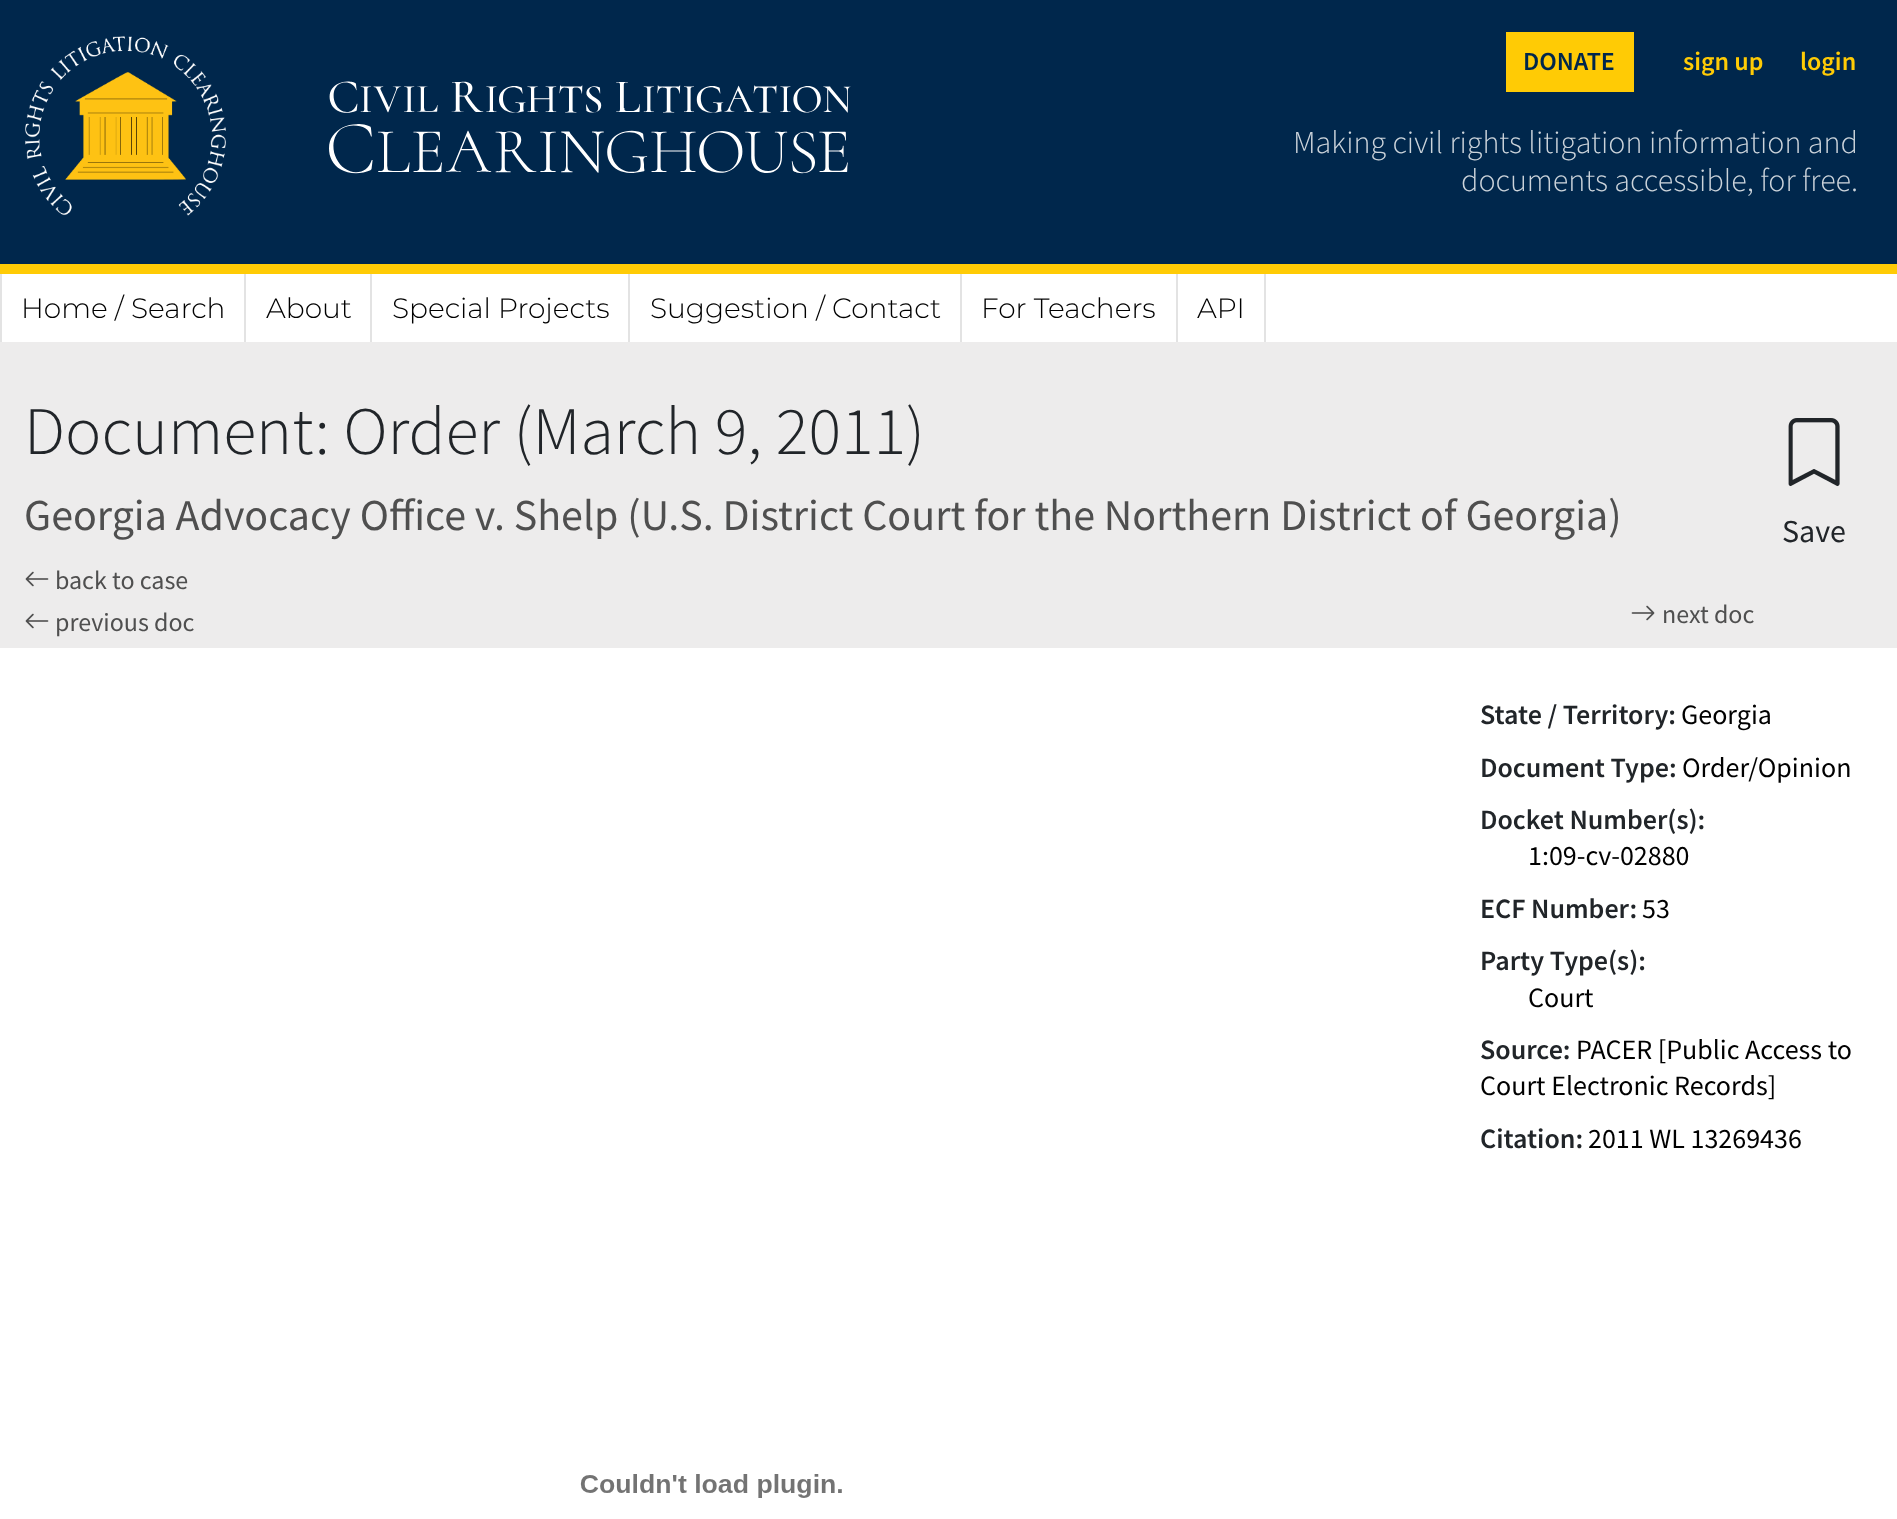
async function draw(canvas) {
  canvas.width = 1897
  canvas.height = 1519
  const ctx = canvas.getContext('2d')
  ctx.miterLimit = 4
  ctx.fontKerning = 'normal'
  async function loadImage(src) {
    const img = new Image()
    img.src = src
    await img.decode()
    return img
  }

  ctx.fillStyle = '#edecec'
  ctx.fillRect(0, 0, 1897, 1519)
  ctx.fillStyle = '#00274c'
  ctx.fillRect(0, 0, 1897, 264)
  ctx.fillStyle = '#ffcb05'
  ctx.fillRect(0, 264, 1897, 10)
  ctx.drawImage(await loadImage('image0.png'), 25, 36, 201, 180)
  ctx.drawImage(await loadImage('image1.png'), 329, 81, 522, 93)
  ctx.fillRect(1506, 32, 128, 60)
  ctx.font = '600 26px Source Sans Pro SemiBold'
  ctx.fillStyle = '#00274c'
  ctx.fillText('DONATE', 1523, 70)
  ctx.fillStyle = '#ffcb05'
  ctx.fillText('sign up', 1683, 70)
  ctx.fillText('login', 1800, 70)
  ctx.font = '300 32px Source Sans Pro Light'
  ctx.fillStyle = '#ccd4db'
  ctx.fillText('Making civil rights litigation information and', 1293, 153)
  ctx.fillText('documents accessible, for free.', 1461, 191)
  ctx.fillStyle = '#fff'
  ctx.fillRect(2, 274, 1895, 68)
  ctx.fillStyle = '#e3e3e3'
  ctx.fillRect(244, 274, 2, 68)
  ctx.fillRect(0, 274, 2, 68)
  ctx.font = '300 28px Montserrat'
  ctx.fillStyle = '#000'
  ctx.fillText('Home / Search', 21, 318)
  ctx.fillStyle = '#e3e3e3'
  ctx.fillRect(370, 274, 2, 68)
  ctx.fillStyle = '#000'
  ctx.fillText('About', 266, 318)
  ctx.fillStyle = '#e3e3e3'
  ctx.fillRect(628, 274, 2, 68)
  ctx.fillStyle = '#000'
  ctx.fillText('Special Projects', 392, 318)
  ctx.fillStyle = '#e3e3e3'
  ctx.fillRect(960, 274, 2, 68)
  ctx.fillStyle = '#000'
  ctx.fillText('Suggestion / Contact', 650, 318)
  ctx.fillStyle = '#e3e3e3'
  ctx.fillRect(1176, 274, 2, 68)
  ctx.fillStyle = '#000'
  ctx.fillText('For Teachers', 981, 318)
  ctx.fillStyle = '#e3e3e3'
  ctx.fillRect(1264, 274, 2, 68)
  ctx.fillStyle = '#000'
  ctx.fillText('API', 1197, 318)
  ctx.font = '300 68px Source Sans Pro Light'
  ctx.fillStyle = '#212529'
  ctx.fillText('Document: Order (March 9, 2011)', 24, 454)
  ctx.font = '44px Source Sans Pro'
  ctx.fillStyle = '#4f4f4f'
  ctx.fillText('Georgia Advocacy Office v. Shelp (U.S. District Court for the Northern District of Georgia)', 24, 530)
  ctx.drawImage(await loadImage('image2.png'), 25, 571, 24, 16)
  ctx.font = '26px Source Sans Pro'
  ctx.fillText('back to case', 55, 589)
  ctx.drawImage(await loadImage('image2.png'), 25, 613, 24, 16)
  ctx.fillText('previous doc', 55, 631)
  ctx.drawImage(await loadImage('image3.png'), 1631, 605, 24, 16)
  ctx.fillText('next doc', 1662, 623)
  ctx.drawImage(await loadImage('image4.png'), 1788, 418, 52, 69)
  ctx.font = '32px Source Sans Pro'
  ctx.fillStyle = '#212529'
  ctx.fillText('Save', 1782, 542)
  ctx.fillStyle = '#fff'
  ctx.fillRect(0, 648, 1897, 871)
  ctx.font = '600 28px Source Sans Pro SemiBold'
  ctx.fillStyle = '#212529'
  ctx.fillText('State / Territory:', 1480, 724)
  ctx.font = '28px Source Sans Pro'
  ctx.fillStyle = '#000'
  ctx.fillText('Georgia', 1681, 724)
  ctx.font = '600 28px Source Sans Pro SemiBold'
  ctx.fillStyle = '#212529'
  ctx.fillText('Document Type:', 1480, 777)
  ctx.font = '28px Source Sans Pro'
  ctx.fillStyle = '#000'
  ctx.fillText('Order/Opinion', 1682, 777)
  ctx.font = '600 28px Source Sans Pro SemiBold'
  ctx.fillStyle = '#212529'
  ctx.fillText('Docket Number(s):', 1480, 829)
  ctx.font = '28px Source Sans Pro'
  ctx.fillStyle = '#000'
  ctx.fillText('1:09-cv-02880', 1528, 865)
  ctx.font = '600 28px Source Sans Pro SemiBold'
  ctx.fillStyle = '#212529'
  ctx.fillText('ECF Number:', 1480, 918)
  ctx.font = '28px Source Sans Pro'
  ctx.fillStyle = '#000'
  ctx.fillText('53', 1642, 918)
  ctx.font = '600 28px Source Sans Pro SemiBold'
  ctx.fillStyle = '#212529'
  ctx.fillText('Party Type(s):', 1480, 970)
  ctx.font = '28px Source Sans Pro'
  ctx.fillStyle = '#000'
  ctx.fillText('Court', 1528, 1007)
  ctx.font = '600 28px Source Sans Pro SemiBold'
  ctx.fillStyle = '#212529'
  ctx.fillText('Source:', 1480, 1059)
  ctx.font = '28px Source Sans Pro'
  ctx.fillStyle = '#000'
  ctx.fillText('PACER [Public Access to', 1576, 1059)
  ctx.fillText('Court Electronic Records]', 1480, 1095)
  ctx.font = '600 28px Source Sans Pro SemiBold'
  ctx.fillStyle = '#212529'
  ctx.fillText('Citation:', 1480, 1148)
  ctx.font = '28px Source Sans Pro'
  ctx.fillStyle = '#000'
  ctx.fillText('2011 WL 13269436', 1588, 1148)
  ctx.drawImage(await loadImage('image5.png'), 580, 1474, 262, 24)
}

draw(document.querySelector('canvas'))
